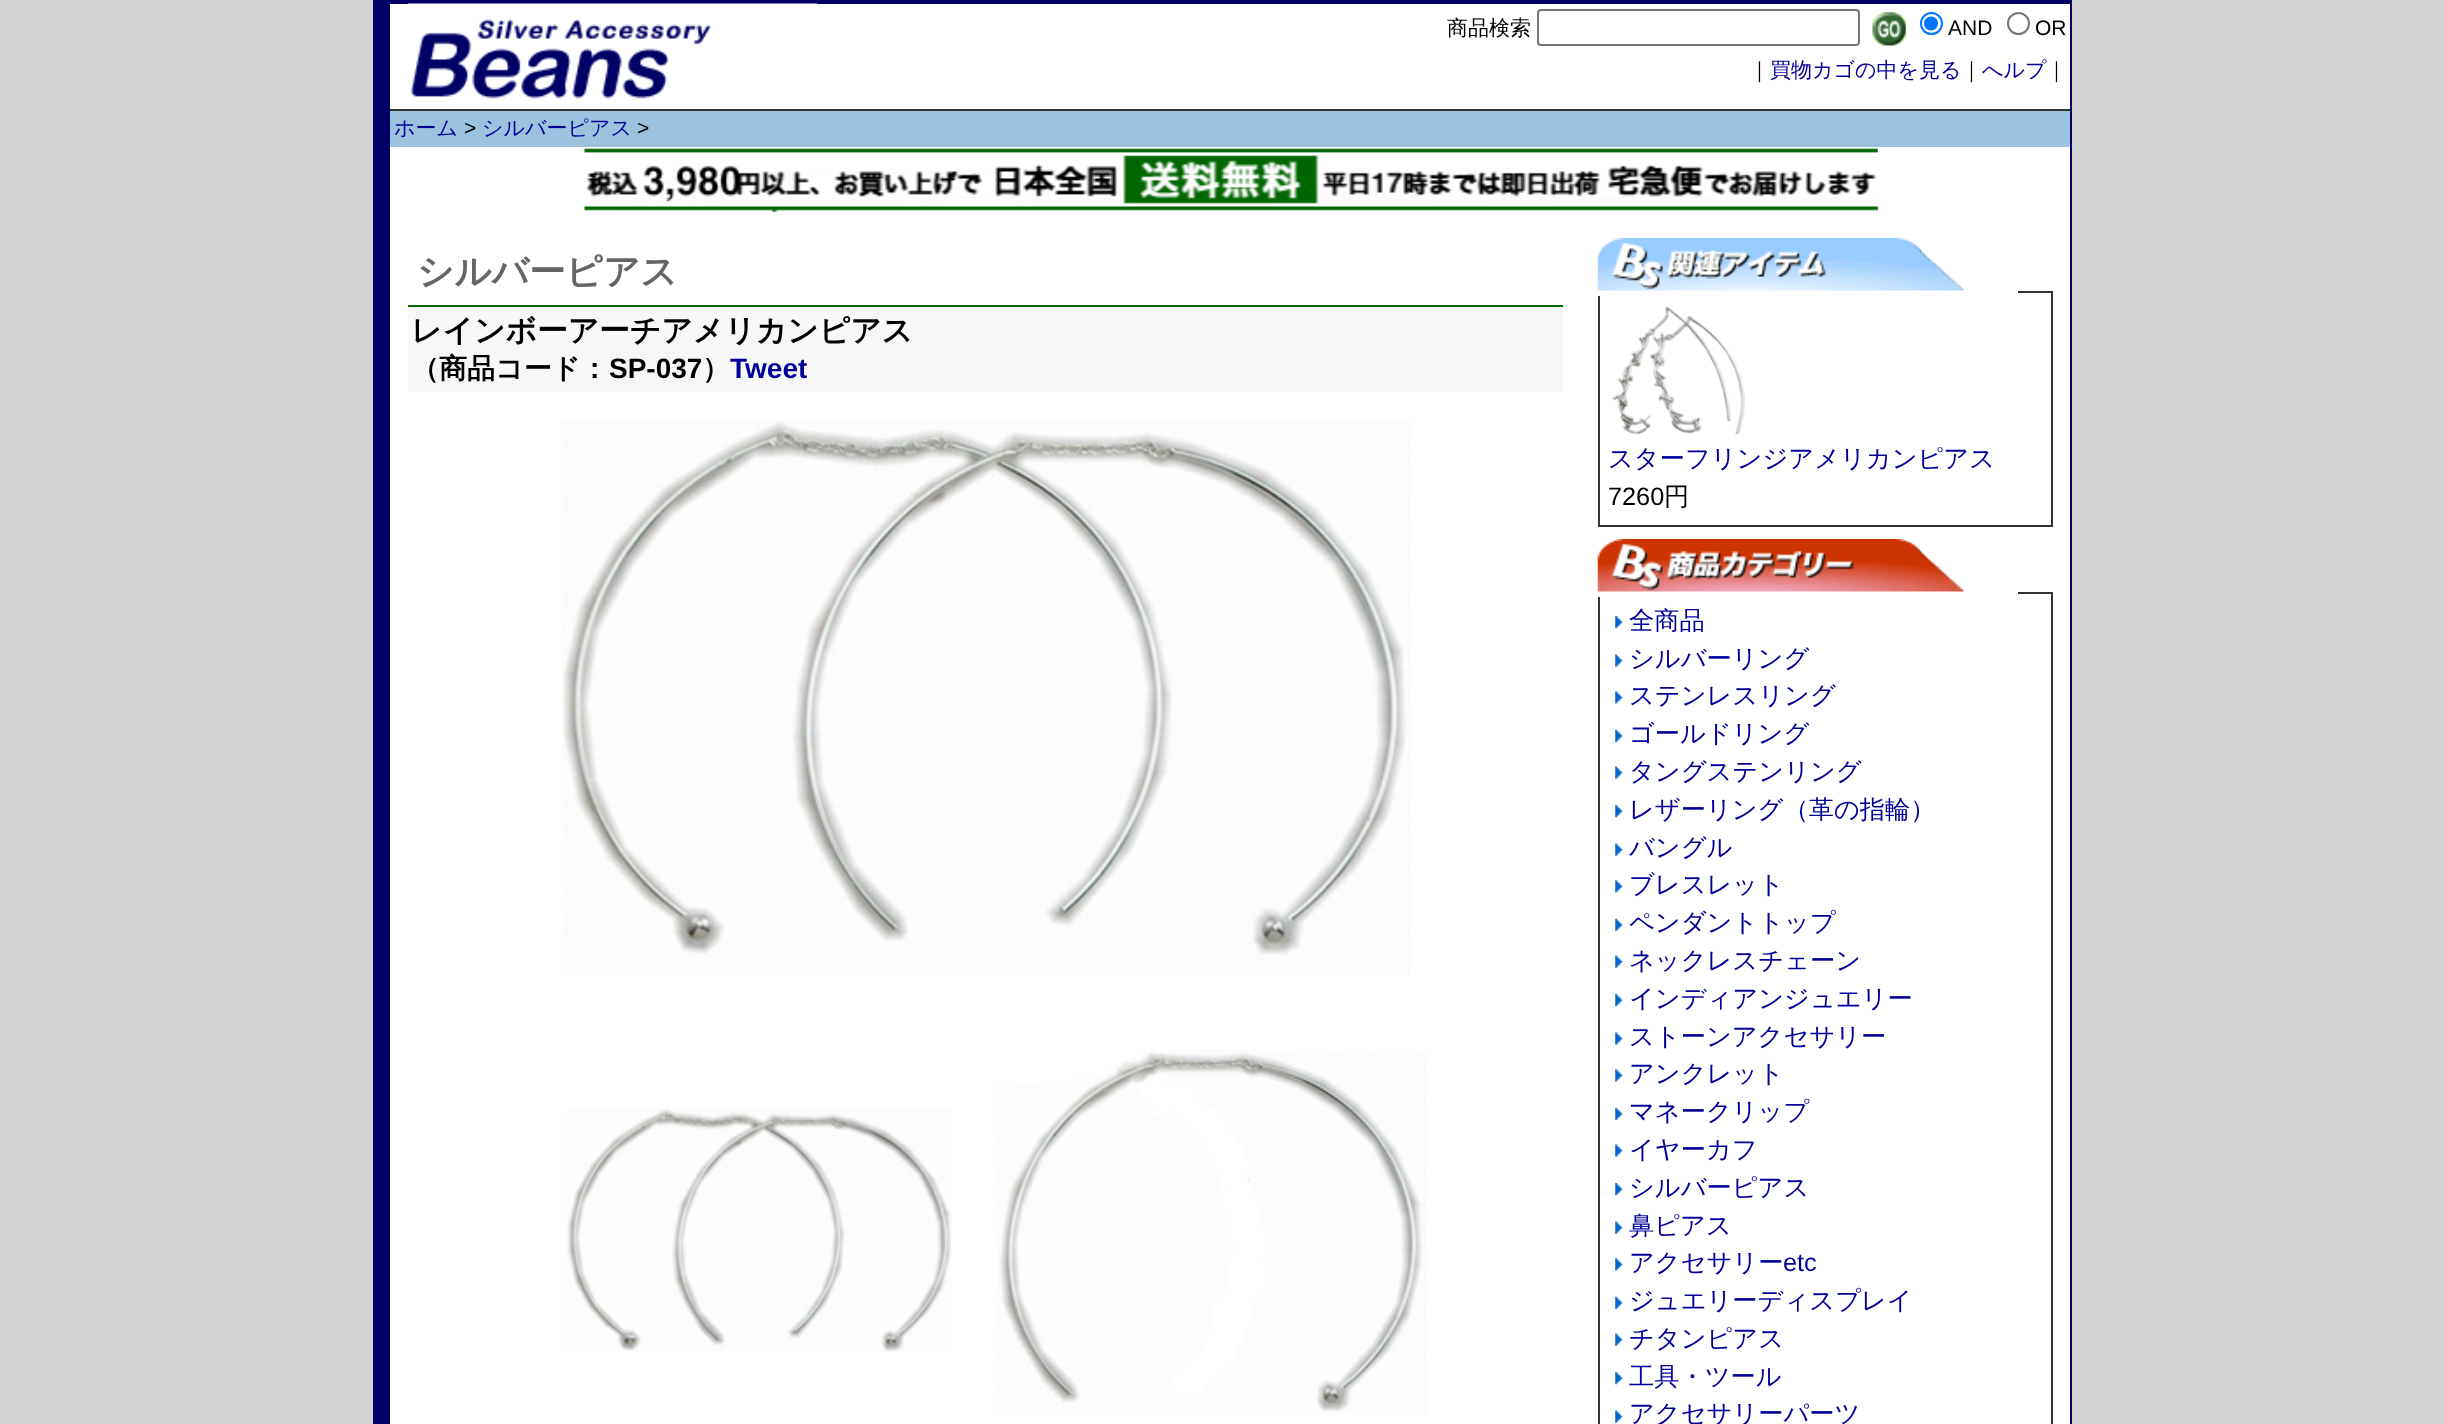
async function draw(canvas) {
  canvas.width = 2444
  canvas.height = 1424
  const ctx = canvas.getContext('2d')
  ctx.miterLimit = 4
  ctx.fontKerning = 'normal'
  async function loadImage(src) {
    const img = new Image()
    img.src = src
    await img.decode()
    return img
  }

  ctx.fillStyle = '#d3d3d3'
  ctx.fillRect(0, 0, 2444, 1424)
  ctx.fillStyle = '#fff'
  ctx.fillRect(390, 4, 1680, 1420)
  ctx.fillStyle = '#006'
  ctx.fillRect(390, 0, 1682, 4)
  ctx.fillRect(2070, 0, 2, 1424)
  ctx.fillRect(373, 0, 17, 1424)
  ctx.drawImage(await loadImage('image0.png'), 407, 3, 411, 96)
  ctx.font = '500 21px WenQuanYi Zen Hei'
  ctx.fillStyle = '#000'
  ctx.fillText('商品検索', 1447, 35)
  ctx.beginPath()
  ctx.roundRect(1538, 10, 321, 35, 3)
  ctx.strokeStyle = '#767676'
  ctx.lineWidth = 2
  ctx.stroke()
  ctx.drawImage(await loadImage('image1.png'), 1872, 12, 34, 34)
  ctx.beginPath()
  ctx.arc(1931.5, 23.5, 10.5, 0, 2 * Math.PI)
  ctx.strokeStyle = '#0075ff'
  ctx.stroke()
  ctx.fillStyle = '#0075ff'
  ctx.beginPath()
  ctx.arc(1931, 23.5, 7, 0, 2 * Math.PI)
  ctx.fill()
  ctx.font = '21px Liberation Sans'
  ctx.fillStyle = '#000'
  ctx.fillText('AND', 1948, 35)
  ctx.beginPath()
  ctx.arc(2018.5, 23.5, 10.5, 0, 2 * Math.PI)
  ctx.strokeStyle = '#767676'
  ctx.stroke()
  ctx.fillText('OR', 2035, 35)
  ctx.font = '500 21px WenQuanYi Zen Hei'
  ctx.fillText('｜', 1749, 77)
  ctx.fillStyle = '#009'
  ctx.fillText('買物カゴの中を見る', 1770, 77)
  ctx.fillStyle = '#000'
  ctx.fillText('｜', 1961, 77)
  ctx.fillStyle = '#009'
  ctx.fillText('へルプ', 1982, 77)
  ctx.fillStyle = '#000'
  ctx.fillText('｜', 2046, 77)
  ctx.fillStyle = '#9cc3de'
  ctx.fillRect(390, 111, 1680, 36)
  ctx.fillStyle = '#333'
  ctx.fillRect(390, 109, 1680, 2)
  ctx.fillStyle = '#009'
  ctx.fillText('ホーム', 394, 135)
  ctx.font = '21px Liberation Sans'
  ctx.fillStyle = '#000'
  ctx.fillText('>', 464, 135)
  ctx.font = '500 21px WenQuanYi Zen Hei'
  ctx.fillStyle = '#009'
  ctx.fillText('シルバーピアス', 482, 135)
  ctx.font = '21px Liberation Sans'
  ctx.fillStyle = '#000'
  ctx.fillText('>', 637, 135)
  ctx.drawImage(await loadImage('image2.png'), 584, 148, 1294, 64)
  ctx.font = 'bold 36.5px WenQuanYi Zen Hei'
  ctx.fillStyle = '#666'
  ctx.fillText('シルバーピアス', 417, 284)
  ctx.fillStyle = '#f7f7f7'
  ctx.fillRect(408, 307, 1155, 85)
  ctx.fillStyle = '#060'
  ctx.fillRect(408, 305, 1155, 2)
  ctx.font = 'bold 30.75px WenQuanYi Zen Hei'
  ctx.fillStyle = '#000'
  ctx.fillText('レインボーアーチアメリカンピアス', 411, 341)
  ctx.font = 'bold 28px WenQuanYi Zen Hei'
  ctx.fillText('（商品コード：', 411, 378)
  ctx.font = 'bold 28px Liberation Sans'
  ctx.fillText('SP-037', 609, 378)
  ctx.font = 'bold 28px WenQuanYi Zen Hei'
  ctx.fillText('）', 702, 378)
  ctx.font = 'bold 28px Liberation Sans'
  ctx.fillStyle = '#009'
  ctx.fillText('Tweet', 730, 378)
  ctx.drawImage(await loadImage('image3.png'), 561, 420, 849, 555)
  ctx.drawImage(await loadImage('image4.png'), 567, 1108, 385, 244)
  ctx.drawImage(await loadImage('image5.png'), 998, 1050, 428, 365)
  ctx.drawImage(await loadImage('image6.png'), 1597, 238, 367, 53)
  ctx.strokeStyle = '#333'
  ctx.strokeRect(1599, 292, 453, 234)
  ctx.fillStyle = '#fff'
  ctx.fillRect(1598, 291, 420, 5)
  ctx.drawImage(await loadImage('image7.png'), 1612, 306, 133, 129)
  ctx.font = '500 25.25px WenQuanYi Zen Hei'
  ctx.fillStyle = '#009'
  ctx.fillText('スターフリンジアメリカンピアス', 1608, 467)
  ctx.font = '25.25px Liberation Sans'
  ctx.fillStyle = '#000'
  ctx.fillText('7260', 1608, 505)
  ctx.font = '500 25.25px WenQuanYi Zen Hei'
  ctx.fillText('円', 1664, 505)
  ctx.drawImage(await loadImage('image8.png'), 1597, 539, 367, 53)
  ctx.strokeRect(1599, 593, 453, 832)
  ctx.fillStyle = '#fff'
  ctx.fillRect(1598, 592, 420, 5)
  ctx.drawImage(await loadImage('image9.png'), 1615, 616, 8, 13)
  ctx.fillStyle = '#009'
  ctx.fillText('全商品', 1629, 629)
  ctx.drawImage(await loadImage('image10.png'), 1615, 654, 8, 13)
  ctx.fillText('シルバーリング', 1629, 667)
  ctx.drawImage(await loadImage('image11.png'), 1615, 691, 8, 13)
  ctx.fillText('ステンレスリング', 1629, 704)
  ctx.drawImage(await loadImage('image12.png'), 1615, 729, 8, 13)
  ctx.fillText('ゴールドリング', 1629, 742)
  ctx.drawImage(await loadImage('image10.png'), 1615, 766, 8, 13)
  ctx.fillText('タングステンリング', 1629, 780)
  ctx.drawImage(await loadImage('image9.png'), 1615, 805, 8, 13)
  ctx.fillText('レザーリング（革の指輪）', 1629, 818)
  ctx.drawImage(await loadImage('image10.png'), 1615, 843, 8, 13)
  ctx.fillText('バングル', 1629, 856)
  ctx.drawImage(await loadImage('image11.png'), 1615, 880, 8, 13)
  ctx.fillText('ブレスレット', 1629, 893)
  ctx.drawImage(await loadImage('image12.png'), 1615, 918, 8, 13)
  ctx.fillText('ペンダントトップ', 1629, 931)
  ctx.drawImage(await loadImage('image10.png'), 1615, 955, 8, 13)
  ctx.fillText('ネックレスチェーン', 1629, 969)
  ctx.drawImage(await loadImage('image9.png'), 1615, 994, 8, 13)
  ctx.fillText('インディアンジュエリー', 1629, 1007)
  ctx.drawImage(await loadImage('image10.png'), 1615, 1032, 8, 13)
  ctx.fillText('ストーンアクセサリー', 1629, 1045)
  ctx.drawImage(await loadImage('image11.png'), 1615, 1069, 8, 13)
  ctx.fillText('アンクレット', 1629, 1082)
  ctx.drawImage(await loadImage('image12.png'), 1615, 1107, 8, 13)
  ctx.fillText('マネークリップ', 1629, 1120)
  ctx.drawImage(await loadImage('image10.png'), 1615, 1144, 8, 13)
  ctx.fillText('イヤーカフ', 1629, 1158)
  ctx.drawImage(await loadImage('image9.png'), 1615, 1183, 8, 13)
  ctx.fillText('シルバーピアス', 1629, 1196)
  ctx.drawImage(await loadImage('image10.png'), 1615, 1221, 8, 13)
  ctx.fillText('鼻ピアス', 1629, 1234)
  ctx.drawImage(await loadImage('image11.png'), 1615, 1258, 8, 13)
  ctx.fillText('アクセサリー', 1629, 1271)
  ctx.font = '25.25px Liberation Sans'
  ctx.fillText('etc', 1783, 1271)
  ctx.drawImage(await loadImage('image12.png'), 1615, 1296, 8, 13)
  ctx.font = '500 25.25px WenQuanYi Zen Hei'
  ctx.fillText('ジュエリーディスプレイ', 1629, 1309)
  ctx.drawImage(await loadImage('image10.png'), 1615, 1333, 8, 13)
  ctx.fillText('チタンピアス', 1629, 1347)
  ctx.drawImage(await loadImage('image9.png'), 1615, 1372, 8, 13)
  ctx.fillText('工具・ツール', 1629, 1385)
  ctx.drawImage(await loadImage('image10.png'), 1615, 1410, 8, 13)
  ctx.fillText('アクセサリーパーツ', 1629, 1422)
}

draw(document.querySelector('canvas'))
